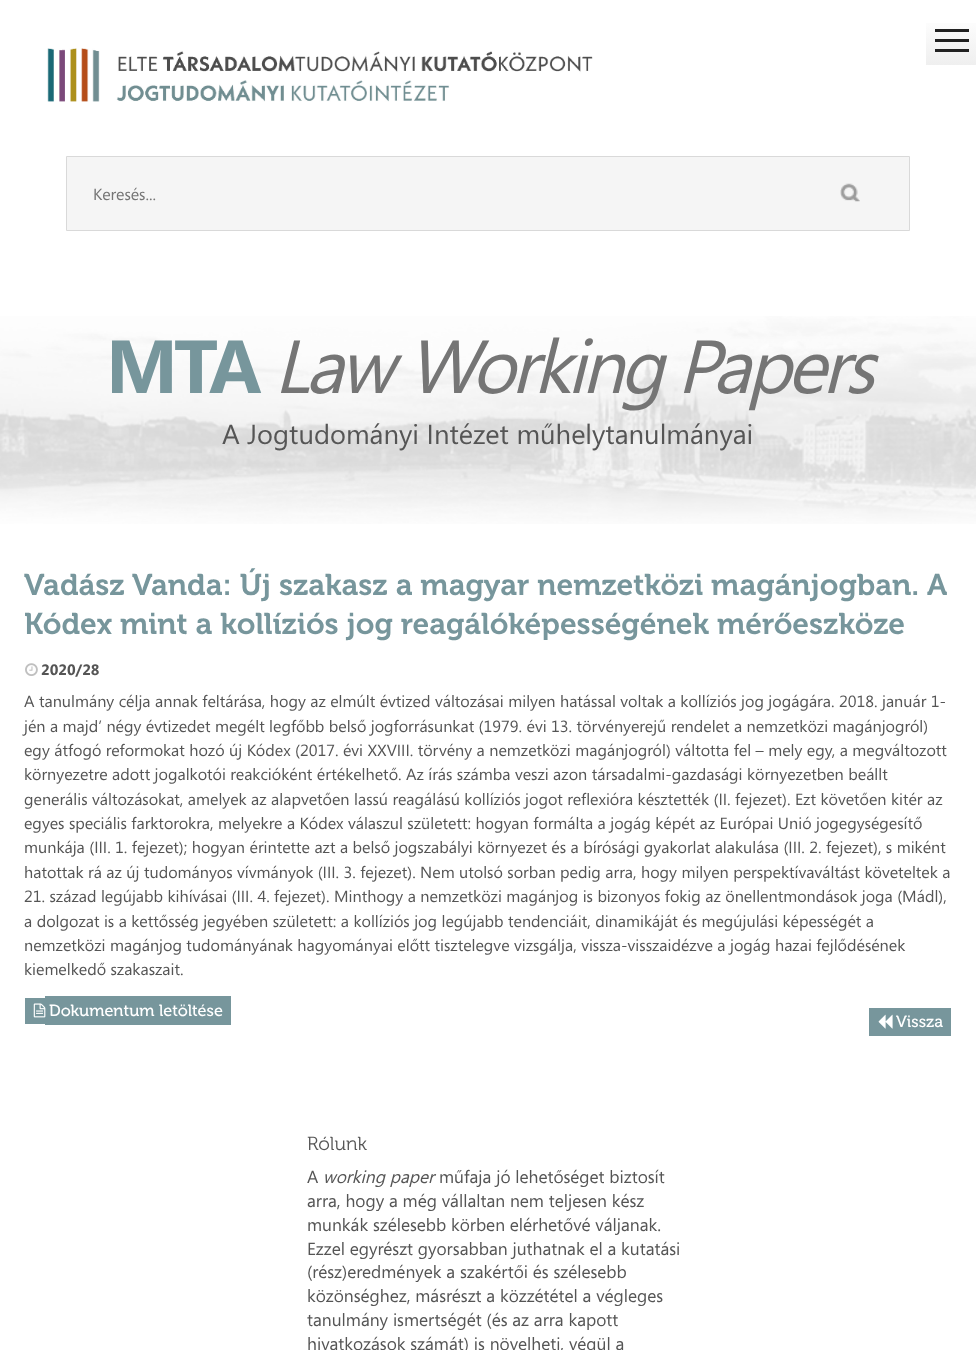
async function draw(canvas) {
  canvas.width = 976
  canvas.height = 1350
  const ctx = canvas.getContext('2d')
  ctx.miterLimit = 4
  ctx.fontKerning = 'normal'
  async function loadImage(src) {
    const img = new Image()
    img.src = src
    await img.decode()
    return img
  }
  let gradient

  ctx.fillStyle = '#fff'
  ctx.fillRect(0, 0, 976, 1350)
  gradient = ctx.createLinearGradient(951, 15, 951, 65)
  gradient.addColorStop(0, '#fff')
  gradient.addColorStop(1, '#efefef')
  ctx.fillStyle = gradient
  ctx.fillRect(926, 23, 50, 42)
  ctx.fillStyle = '#222'
  ctx.fillRect(935, 29, 34, 3)
  ctx.fillRect(935, 39, 34, 3)
  ctx.fillRect(935, 49, 34, 3)
  ctx.drawImage(await loadImage('image0.png'), 47, 48, 546, 54)
  ctx.fillStyle = '#f5f5f5'
  ctx.beginPath()
  ctx.rect(66.5, 156.5, 843, 74)
  ctx.fill()
  ctx.strokeStyle = '#d9d9d9'
  ctx.stroke()
  ctx.font = '16.25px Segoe'
  ctx.fillStyle = '#757575'
  ctx.fillText('Keresés...', 93, 200)
  ctx.drawImage(await loadImage('image1.png'), 840, 183, 20, 19)
  ctx.drawImage(await loadImage('image2.png'), 0, 316, 976, 208)
  ctx.letterSpacing = '-3.75px'
  ctx.font = 'bold 75px Segoe'
  ctx.fillStyle = '#77969c'
  ctx.fillText('MTA', 106, 393)
  ctx.font = 'italic 75px Segoe'
  ctx.fillStyle = '#757575'
  ctx.fillText('Law Working Papers', 274, 393)
  ctx.letterSpacing = '0px'
  ctx.font = '27.5px Segoe'
  ctx.fillStyle = '#555'
  ctx.fillText('A Jogtudományi Intézet műhelytanulmányai', 222, 444)
  ctx.font = '30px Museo'
  ctx.fillStyle = '#77969c'
  ctx.fillText('Vadász Vanda: Új szakasz a magyar nemzetközi magánjogban. A', 24, 595)
  ctx.fillText('Kódex mint a kollíziós jog reagálóképességének mérőeszköze', 24, 634)
  ctx.drawImage(await loadImage('image3.png'), 25, 663, 13, 13)
  ctx.font = 'bold 15px Segoe'
  ctx.fillStyle = '#555'
  ctx.fillText('2020/28', 41, 675)
  ctx.font = '16.25px Segoe'
  ctx.fillText('A tanulmány célja annak feltárása, hogy az elmúlt évtized változásai milyen hatással voltak a kollíziós jog jogágára. 2018. január 1-', 24, 707)
  ctx.fillText('jén a majd’ négy évtizedet megélt legfőbb belső jogforrásunkat (1979. évi 13. törvényerejű rendelet a nemzetközi magánjogról)', 24, 732)
  ctx.fillText('egy átfogó reformokat hozó új Kódex (2017. évi XXVIII. törvény a nemzetközi magánjogról) váltotta fel – mely egy, a megváltozott', 24, 756)
  ctx.fillText('környezetre adott jogalkotói reakcióként értékelhető. Az írás számba veszi azon társadalmi-gazdasági környezetben beállt', 24, 780)
  ctx.fillText('generális változásokat, amelyek az alapvetően lassú reagálású kollíziós jogot reflexióra késztették (II. fejezet). Ezt követően kitér az', 24, 805)
  ctx.fillText('egyes speciális farktorokra, melyekre a Kódex válaszul született: hogyan formálta a jogág képét az Európai Unió jogegységesítő', 24, 829)
  ctx.fillText('munkája (III. 1. fejezet); hogyan érintette azt a belső jogszabályi környezet és a bírósági gyakorlat alakulása (III. 2. fejezet), s miként', 24, 853)
  ctx.fillText('hatottak rá az új tudományos vívmányok (III. 3. fejezet). Nem utolsó sorban pedig arra, hogy milyen perspektívaváltást követeltek a', 24, 878)
  ctx.fillText('21. század legújabb kihívásai (III. 4. fejezet). Minthogy a nemzetközi magánjog is bizonyos fokig az önellentmondások joga (Mádl),', 24, 902)
  ctx.fillText('a dolgozat is a kettősség jegyében született: a kollíziós jog legújabb tendenciáit, dinamikáját és megújulási képességét a', 24, 927)
  ctx.fillText('nemzetközi magánjog tudományának hagyományai előtt tisztelegve vizsgálja, vissza-visszaidézve a jogág hazai fejlődésének', 24, 951)
  ctx.fillText('kiemelkedő szakaszait.', 24, 975)
  ctx.fillStyle = '#77969c'
  ctx.fillRect(25, 998, 20, 26)
  ctx.fillRect(45, 996, 186, 29)
  ctx.drawImage(await loadImage('image4.png'), 33, 1003, 13, 15)
  ctx.font = '16.25px "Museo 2"'
  ctx.fillStyle = '#fff'
  ctx.fillText('Dokumentum letöltése', 49, 1016)
  ctx.fillStyle = '#77969c'
  ctx.fillRect(869, 1008, 82, 28)
  ctx.drawImage(await loadImage('image5.png'), 878, 1014, 15, 15)
  ctx.fillStyle = '#fff'
  ctx.fillText('Vissza', 896, 1027)
  ctx.font = '19px "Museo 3"'
  ctx.fillStyle = '#555'
  ctx.fillText('Rólunk', 307, 1150)
  ctx.font = '17.5px Segoe'
  ctx.fillText('A', 307, 1183)
  ctx.font = 'italic 17.5px Segoe'
  ctx.fillText('working paper', 323, 1183)
  ctx.font = '17.5px Segoe'
  ctx.fillText('műfaja jó lehetőséget biztosít', 439, 1183)
  ctx.fillText('arra, hogy a még vállaltan nem teljesen kész', 307, 1207)
  ctx.fillText('munkák szélesebb körben elérhetővé váljanak.', 307, 1231)
  ctx.fillText('Ezzel egyrészt gyorsabban juthatnak el a kutatási', 307, 1255)
  ctx.fillText('(rész)eredmények a szakértői és szélesebb', 307, 1278)
  ctx.fillText('közönséghez, másrészt a közzététel a végleges', 307, 1302)
  ctx.fillText('tanulmány ismertségét (és az arra kapott', 307, 1326)
  ctx.fillText('hivatkozások számát) is növelheti, végül a', 307, 1350)
}

draw(document.querySelector('canvas'))
